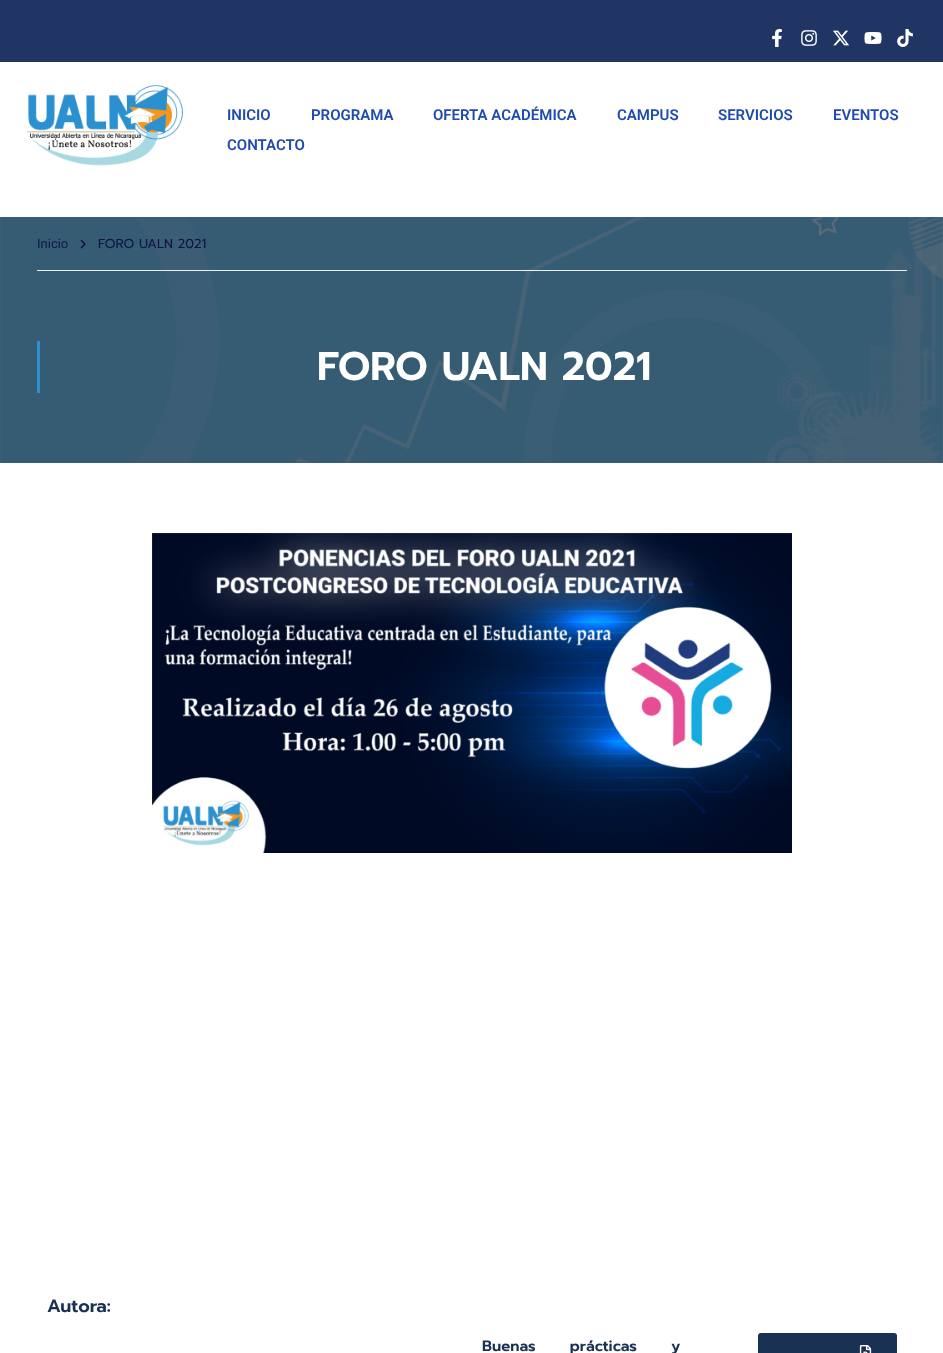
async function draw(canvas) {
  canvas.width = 943
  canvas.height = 1353
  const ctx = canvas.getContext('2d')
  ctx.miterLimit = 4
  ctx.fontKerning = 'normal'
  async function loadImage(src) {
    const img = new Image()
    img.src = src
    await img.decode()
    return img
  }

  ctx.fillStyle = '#fff'
  ctx.fillRect(0, 0, 943, 1353)
  ctx.fillStyle = '#203564'
  ctx.fillRect(0, 0, 943, 62)
  ctx.drawImage(await loadImage('image0.png'), 772, 29, 10, 18)
  ctx.drawImage(await loadImage('image1.png'), 801, 30, 16, 16)
  ctx.drawImage(await loadImage('image2.png'), 833, 30, 16, 16)
  ctx.drawImage(await loadImage('image3.png'), 864, 32, 18, 12)
  ctx.drawImage(await loadImage('image4.png'), 897, 29, 16, 18)
  ctx.drawImage(await loadImage('image5.png'), 26, 85, 157, 81)
  ctx.font = '600 15px Roboto'
  ctx.fillStyle = '#204ab0'
  ctx.fillText('INICIO', 227, 120)
  ctx.fillText('PROGRAMA', 311, 120)
  ctx.fillText('OFERTA ACADÉMICA', 433, 120)
  ctx.fillText('CAMPUS', 617, 120)
  ctx.fillText('SERVICIOS', 718, 120)
  ctx.fillText('EVENTOS', 833, 120)
  ctx.fillText('CONTACTO', 227, 150)
  ctx.drawImage(await loadImage('image6.png'), 0, 217, 943, 246)
  ctx.fillStyle = '#eee'
  ctx.fillRect(37, 270, 870, 1)
  ctx.font = '13px Roboto'
  ctx.fillStyle = '#101449'
  ctx.fillText('Inicio', 37, 248)
  ctx.drawImage(await loadImage('image7.png'), 80, 239, 6, 10)
  ctx.font = '13px Prompt'
  ctx.fillText('FORO UALN 2021', 98, 248)
  ctx.fillStyle = '#2a90cf'
  ctx.fillRect(37, 341, 3, 52)
  ctx.font = '600 40px Prompt'
  ctx.fillStyle = '#fff'
  ctx.fillText('FORO UALN 2021', 317, 380)
  ctx.drawImage(await loadImage('image8.png'), 152, 533, 640, 320)
  ctx.font = '600 18px Prompt'
  ctx.fillStyle = '#193153'
  ctx.fillText('Autora:', 47, 1312)
  ctx.wordSpacing = '29px'
  ctx.font = '600 15px Prompt'
  ctx.fillText('Buenas prácticas y', 482, 1351)
  ctx.beginPath()
  ctx.roundRect(758, 1333, 139, 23, 3)
  ctx.fill()
  ctx.drawImage(await loadImage('image9.png'), 859, 1345, 13, 8)
}

draw(document.querySelector('canvas'))
